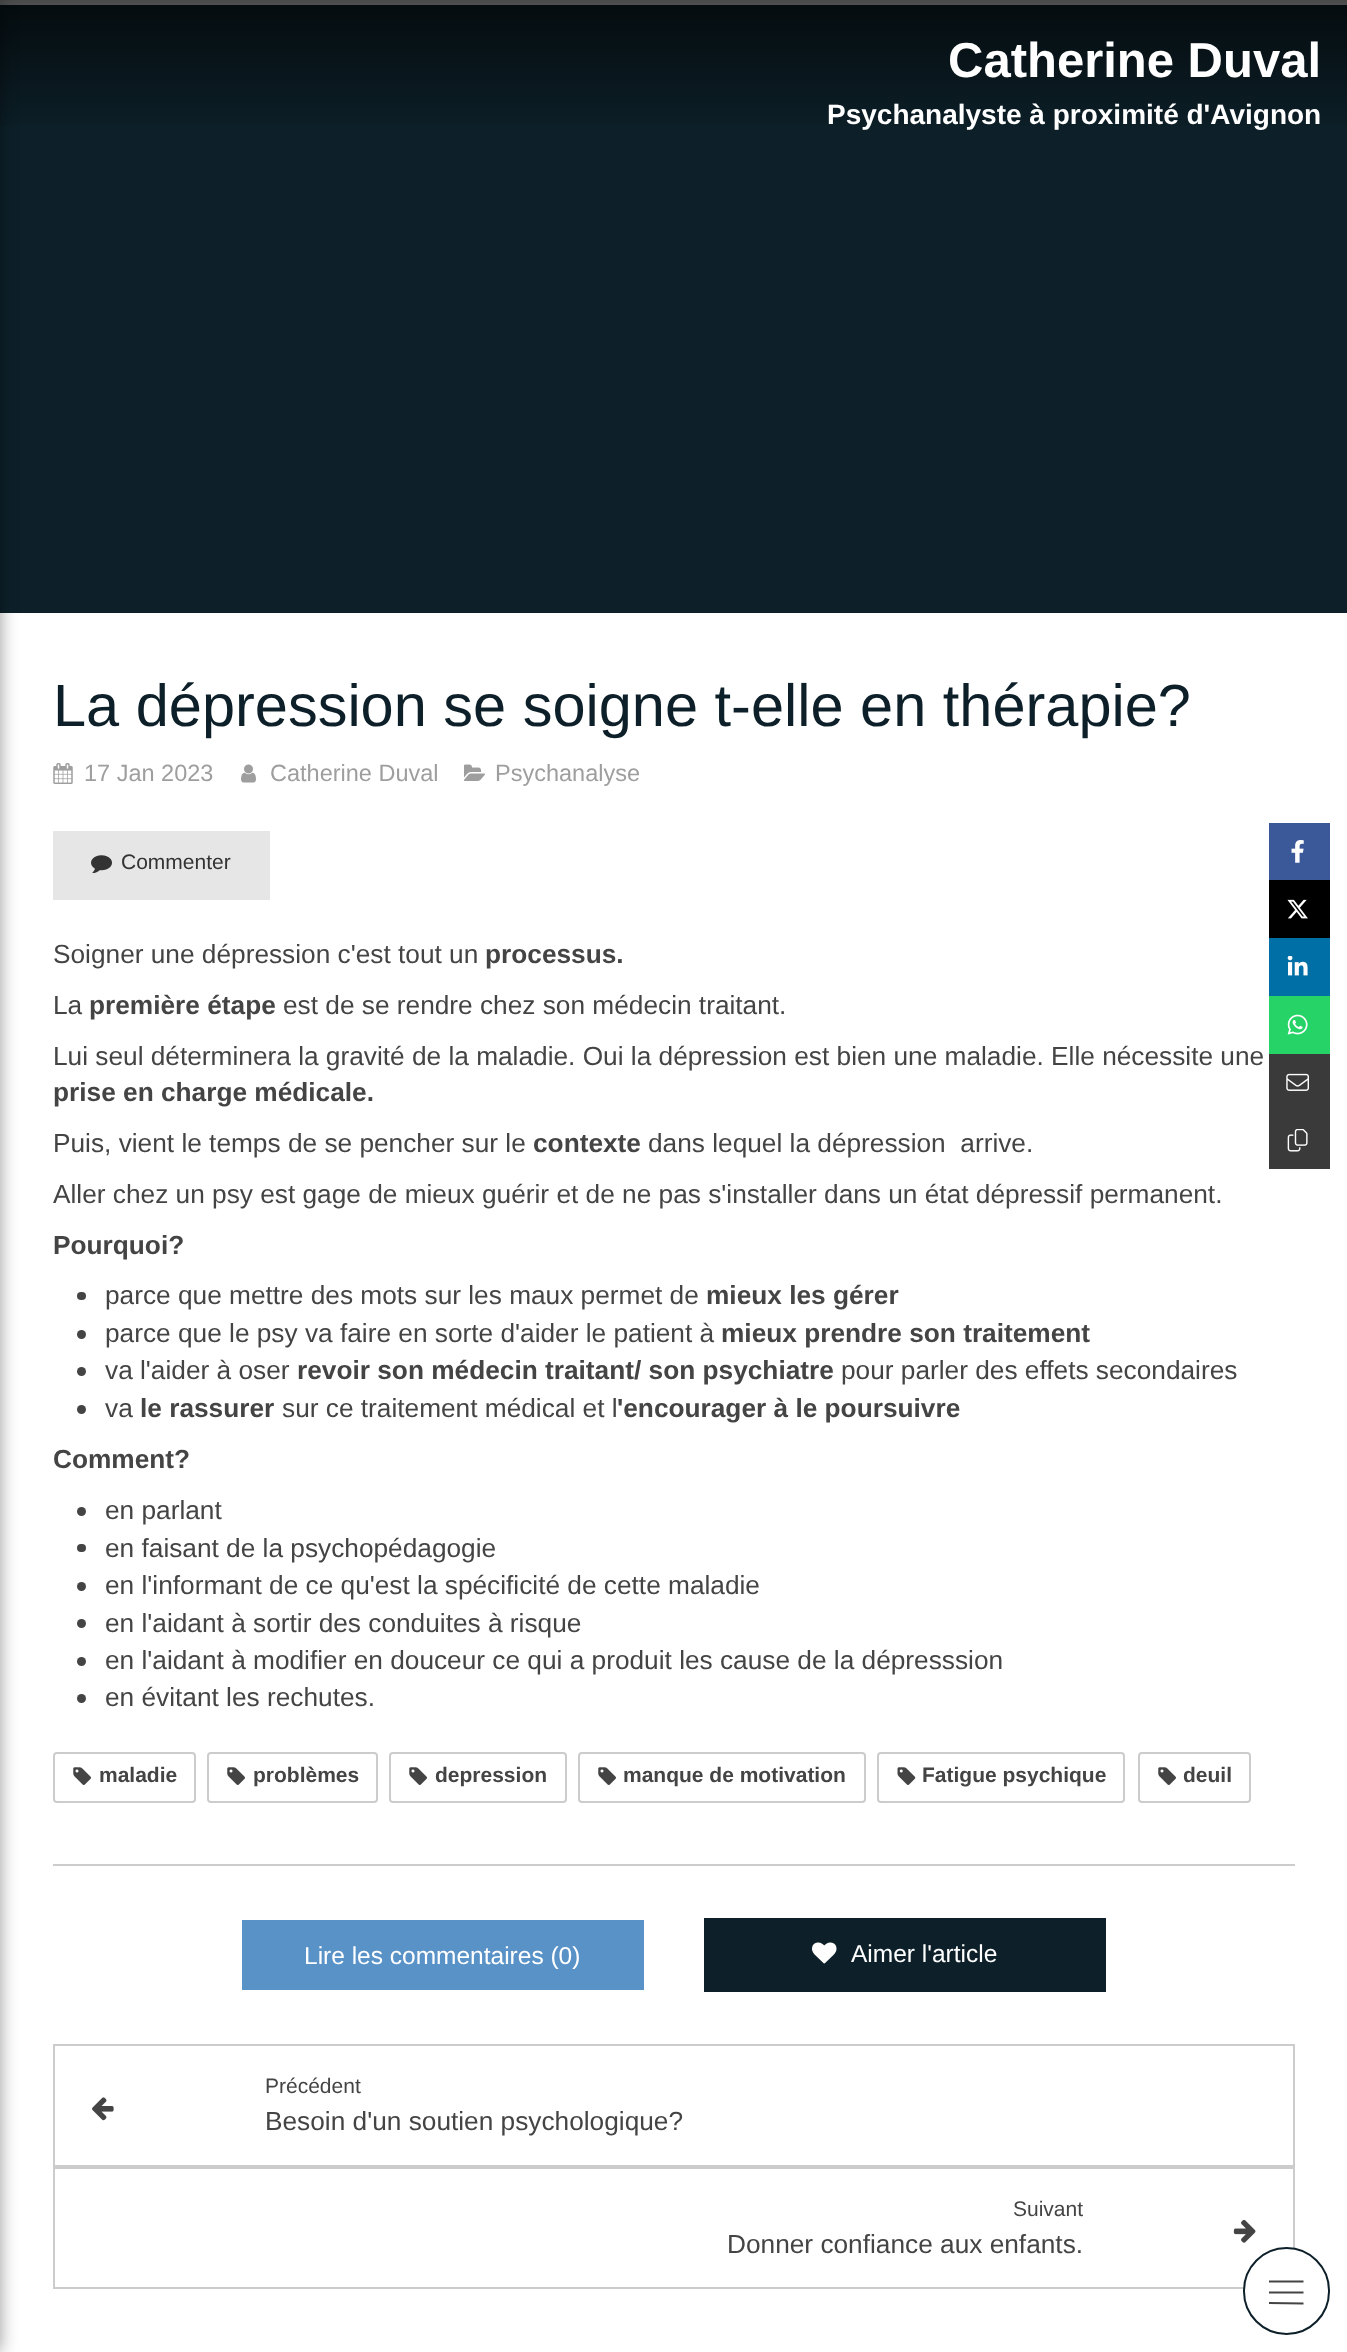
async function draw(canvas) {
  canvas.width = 1347
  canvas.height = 2352
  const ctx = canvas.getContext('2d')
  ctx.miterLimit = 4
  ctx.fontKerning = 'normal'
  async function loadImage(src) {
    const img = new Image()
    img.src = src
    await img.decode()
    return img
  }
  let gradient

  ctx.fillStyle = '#fff'
  ctx.fillRect(0, 0, 1347, 2352)
  ctx.fillStyle = '#cfd2d4'
  ctx.fillRect(0, 0, 1347, 5)
  ctx.fillStyle = '#0d2029'
  ctx.fillRect(0, 5, 1347, 608)
  gradient = ctx.createLinearGradient(674, 0, 674, 140)
  gradient.addColorStop(0, '#000000a6')
  gradient.addColorStop(1, '#00000000')
  ctx.fillStyle = gradient
  ctx.fillRect(0, 0, 1347, 126)
  ctx.fillStyle = '#00000066'
  ctx.filter = 'blur(9px)'
  ctx.beginPath()
  ctx.rect(-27, 0, 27, 2352)
  ctx.fill()
  ctx.filter = 'none'
  ctx.font = 'bold 49px Liberation Sans'
  ctx.fillStyle = '#fff'
  ctx.fillText('Catherine Duval', 948, 77)
  ctx.font = 'bold 28px Liberation Sans'
  ctx.fillText('Psychanalyste à proximité d\'Avignon', 827, 124)
  ctx.font = '59.5px Liberation Sans'
  ctx.fillStyle = '#0d2029'
  ctx.fillText('La dépression se soigne t-elle en thérapie?', 53, 726)
  ctx.drawImage(await loadImage('image0.png'), 53, 763, 20, 21)
  ctx.font = '23.5px Liberation Sans'
  ctx.fillStyle = '#9e9e9e'
  ctx.fillText('17 Jan 2023', 84, 781)
  ctx.drawImage(await loadImage('image1.png'), 241, 764, 15, 19)
  ctx.fillText('Catherine Duval', 270, 781)
  ctx.drawImage(await loadImage('image2.png'), 464, 764, 21, 17)
  ctx.fillText('Psychanalyse', 495, 781)
  ctx.fillStyle = '#e6e6e6'
  ctx.fillRect(53, 831, 217, 69)
  ctx.drawImage(await loadImage('image3.png'), 91, 855, 21, 18)
  ctx.font = '21px Liberation Sans'
  ctx.fillStyle = '#333'
  ctx.fillText('Commenter', 121, 869)
  ctx.font = '26.25px Liberation Sans'
  ctx.fillStyle = '#444'
  ctx.fillText('Soigner une dépression c\'est tout un', 53, 963)
  ctx.font = 'bold 26.25px Liberation Sans'
  ctx.fillText('processus.', 485, 963)
  ctx.font = '26.25px Liberation Sans'
  ctx.fillText('La', 53, 1014)
  ctx.font = 'bold 26.25px Liberation Sans'
  ctx.fillText('première étape', 89, 1014)
  ctx.font = '26.25px Liberation Sans'
  ctx.fillText('est de se rendre chez son médecin traitant.', 283, 1014)
  ctx.fillText('Lui seul déterminera la gravité de la maladie. Oui la dépression est bien une maladie. Elle nécessite une', 53, 1065)
  ctx.font = 'bold 26.25px Liberation Sans'
  ctx.fillText('prise en charge médicale.', 53, 1101)
  ctx.font = '26.25px Liberation Sans'
  ctx.fillText('Puis, vient le temps de se pencher sur le', 53, 1152)
  ctx.font = 'bold 26.25px Liberation Sans'
  ctx.fillText('contexte', 533, 1152)
  ctx.font = '26.25px Liberation Sans'
  ctx.fillText('dans lequel la dépression  arrive.', 648, 1152)
  ctx.fillText('Aller chez un psy est gage de mieux guérir et de ne pas s\'installer dans un état dépressif permanent.', 53, 1203)
  ctx.font = 'bold 26.25px Liberation Sans'
  ctx.fillText('Pourquoi?', 53, 1254)
  ctx.beginPath()
  ctx.roundRect(77, 1292, 9, 8, 4)
  ctx.fill()
  ctx.font = '26.25px Liberation Sans'
  ctx.fillText('parce que mettre des mots sur les maux permet de', 105, 1304)
  ctx.font = 'bold 26.25px Liberation Sans'
  ctx.fillText('mieux les gérer', 706, 1304)
  ctx.beginPath()
  ctx.arc(81.5, 1334.5, 4.5, 0, 2 * Math.PI)
  ctx.fill()
  ctx.font = '26.25px Liberation Sans'
  ctx.fillText('parce que le psy va faire en sorte d\'aider le patient à', 105, 1342)
  ctx.font = 'bold 26.25px Liberation Sans'
  ctx.fillText('mieux prendre son traitement', 721, 1342)
  ctx.beginPath()
  ctx.arc(81.5, 1371.5, 4.5, 0, 2 * Math.PI)
  ctx.fill()
  ctx.font = '26.25px Liberation Sans'
  ctx.fillText('va l\'aider à oser', 105, 1379)
  ctx.font = 'bold 26.25px Liberation Sans'
  ctx.fillText('revoir son médecin traitant/ son psychiatre', 297, 1379)
  ctx.font = '26.25px Liberation Sans'
  ctx.fillText('pour parler des effets secondaires', 841, 1379)
  ctx.beginPath()
  ctx.arc(81.5, 1409.5, 4.5, 0, 2 * Math.PI)
  ctx.fill()
  ctx.fillText('va', 105, 1417)
  ctx.font = 'bold 26.25px Liberation Sans'
  ctx.fillText('le rassurer', 140, 1417)
  ctx.font = '26.25px Liberation Sans'
  ctx.fillText('sur ce traitement médical et l', 282, 1417)
  ctx.font = 'bold 26.25px Liberation Sans'
  ctx.fillText('\'encourager à le poursuivre', 617, 1417)
  ctx.fillText('Comment?', 53, 1468)
  ctx.beginPath()
  ctx.arc(81.5, 1511.5, 4.5, 0, 2 * Math.PI)
  ctx.fill()
  ctx.font = '26.25px Liberation Sans'
  ctx.fillText('en parlant', 105, 1519)
  ctx.beginPath()
  ctx.roundRect(77, 1544, 9, 8, 4)
  ctx.fill()
  ctx.fillText('en faisant de la psychopédagogie', 105, 1557)
  ctx.beginPath()
  ctx.arc(81.5, 1586.5, 4.5, 0, 2 * Math.PI)
  ctx.fill()
  ctx.fillText('en l\'informant de ce qu\'est la spécificité de cette maladie', 105, 1594)
  ctx.beginPath()
  ctx.arc(81.5, 1623.5, 4.5, 0, 2 * Math.PI)
  ctx.fill()
  ctx.fillText('en l\'aidant à sortir des conduites à risque', 105, 1632)
  ctx.beginPath()
  ctx.arc(81.5, 1661.5, 4.5, 0, 2 * Math.PI)
  ctx.fill()
  ctx.fillText('en l\'aidant à modifier en douceur ce qui a produit les cause de la dépresssion', 105, 1669)
  ctx.beginPath()
  ctx.arc(81.5, 1698.5, 4.5, 0, 2 * Math.PI)
  ctx.fill()
  ctx.fillText('en évitant les rechutes.', 105, 1706)
  ctx.beginPath()
  ctx.roundRect(54, 1753, 141, 49, 3)
  ctx.strokeStyle = '#ccc'
  ctx.lineWidth = 2
  ctx.stroke()
  ctx.drawImage(await loadImage('image4.png'), 73, 1767, 18, 18)
  ctx.font = 'bold 21px Liberation Sans'
  ctx.fillText('maladie', 99, 1782)
  ctx.beginPath()
  ctx.roundRect(208, 1753, 169, 49, 3)
  ctx.stroke()
  ctx.drawImage(await loadImage('image4.png'), 227, 1767, 18, 18)
  ctx.fillText('problèmes', 253, 1782)
  ctx.beginPath()
  ctx.roundRect(390, 1753, 176, 49, 3)
  ctx.stroke()
  ctx.drawImage(await loadImage('image4.png'), 409, 1767, 18, 18)
  ctx.fillText('depression', 435, 1782)
  ctx.beginPath()
  ctx.roundRect(579, 1753, 286, 49, 3)
  ctx.stroke()
  ctx.drawImage(await loadImage('image4.png'), 598, 1767, 18, 18)
  ctx.fillText('manque de motivation', 623, 1782)
  ctx.beginPath()
  ctx.roundRect(878, 1753, 246, 49, 3)
  ctx.stroke()
  ctx.drawImage(await loadImage('image5.png'), 897, 1767, 19, 18)
  ctx.fillText('Fatigue psychique', 922, 1782)
  ctx.beginPath()
  ctx.roundRect(1139, 1753, 111, 49, 3)
  ctx.stroke()
  ctx.drawImage(await loadImage('image4.png'), 1158, 1767, 18, 18)
  ctx.fillText('deuil', 1183, 1782)
  ctx.fillStyle = '#3b5998'
  ctx.fillRect(1269, 823, 61, 57)
  ctx.drawImage(await loadImage('image6.png'), 1291, 840, 13, 23)
  ctx.fillStyle = '#000'
  ctx.fillRect(1269, 880, 61, 58)
  ctx.drawImage(await loadImage('image7.png'), 1287, 899, 21, 20)
  ctx.fillStyle = '#006fa6'
  ctx.fillRect(1269, 938, 61, 58)
  ctx.drawImage(await loadImage('image8.png'), 1287, 956, 21, 20)
  ctx.fillStyle = '#25d366'
  ctx.fillRect(1269, 996, 61, 58)
  ctx.drawImage(await loadImage('image9.png'), 1287, 1014, 21, 21)
  ctx.fillStyle = '#3a3a3a'
  ctx.fillRect(1269, 1054, 61, 115)
  ctx.drawImage(await loadImage('image10.png'), 1286, 1073, 23, 18)
  ctx.drawImage(await loadImage('image11.png'), 1287, 1129, 21, 23)
  ctx.fillStyle = '#ccc'
  ctx.fillRect(53, 1864, 1242, 2)
  ctx.fillStyle = '#5992c7'
  ctx.fillRect(242, 1920, 402, 70)
  ctx.font = '24.5px Liberation Sans'
  ctx.fillStyle = '#fff'
  ctx.fillText('Lire les commentaires (0)', 304, 1964)
  ctx.fillStyle = '#0d2029'
  ctx.fillRect(704, 1918, 402, 74)
  ctx.drawImage(await loadImage('image12.png'), 812, 1942, 25, 22)
  ctx.fillStyle = '#fff'
  ctx.fillText('Aimer l\'article', 851, 1962)
  ctx.strokeRect(54, 2045, 1240, 121)
  ctx.drawImage(await loadImage('image13.png'), 92, 2097, 22, 24)
  ctx.font = '21px Liberation Sans'
  ctx.fillStyle = '#444'
  ctx.fillText('Précédent', 265, 2093)
  ctx.font = '26.25px Liberation Sans'
  ctx.fillText('Besoin d\'un soutien psychologique?', 265, 2130)
  ctx.strokeRect(54, 2168, 1240, 120)
  ctx.font = '21px Liberation Sans'
  ctx.fillText('Suivant', 1013, 2216)
  ctx.font = '26.25px Liberation Sans'
  ctx.fillText('Donner confiance aux enfants.', 727, 2253)
  ctx.drawImage(await loadImage('image14.png'), 1233, 2219, 23, 24)
  ctx.fillStyle = '#fff'
  ctx.beginPath()
  ctx.roundRect(1244, 2248, 85, 86, 42.5)
  ctx.fill()
  ctx.strokeStyle = '#0d2029'
  ctx.stroke()
  ctx.beginPath()
  ctx.moveTo(1269, 2292.5)
  ctx.lineTo(1303.5, 2292.5)
  ctx.moveTo(1269, 2281.5)
  ctx.lineTo(1303.5, 2281.5)
  ctx.moveTo(1269, 2303)
  ctx.lineTo(1303.5, 2303.5)
  ctx.strokeStyle = '#444'
  ctx.lineWidth = 2.1
  ctx.stroke()
}

draw(document.querySelector('canvas'))
